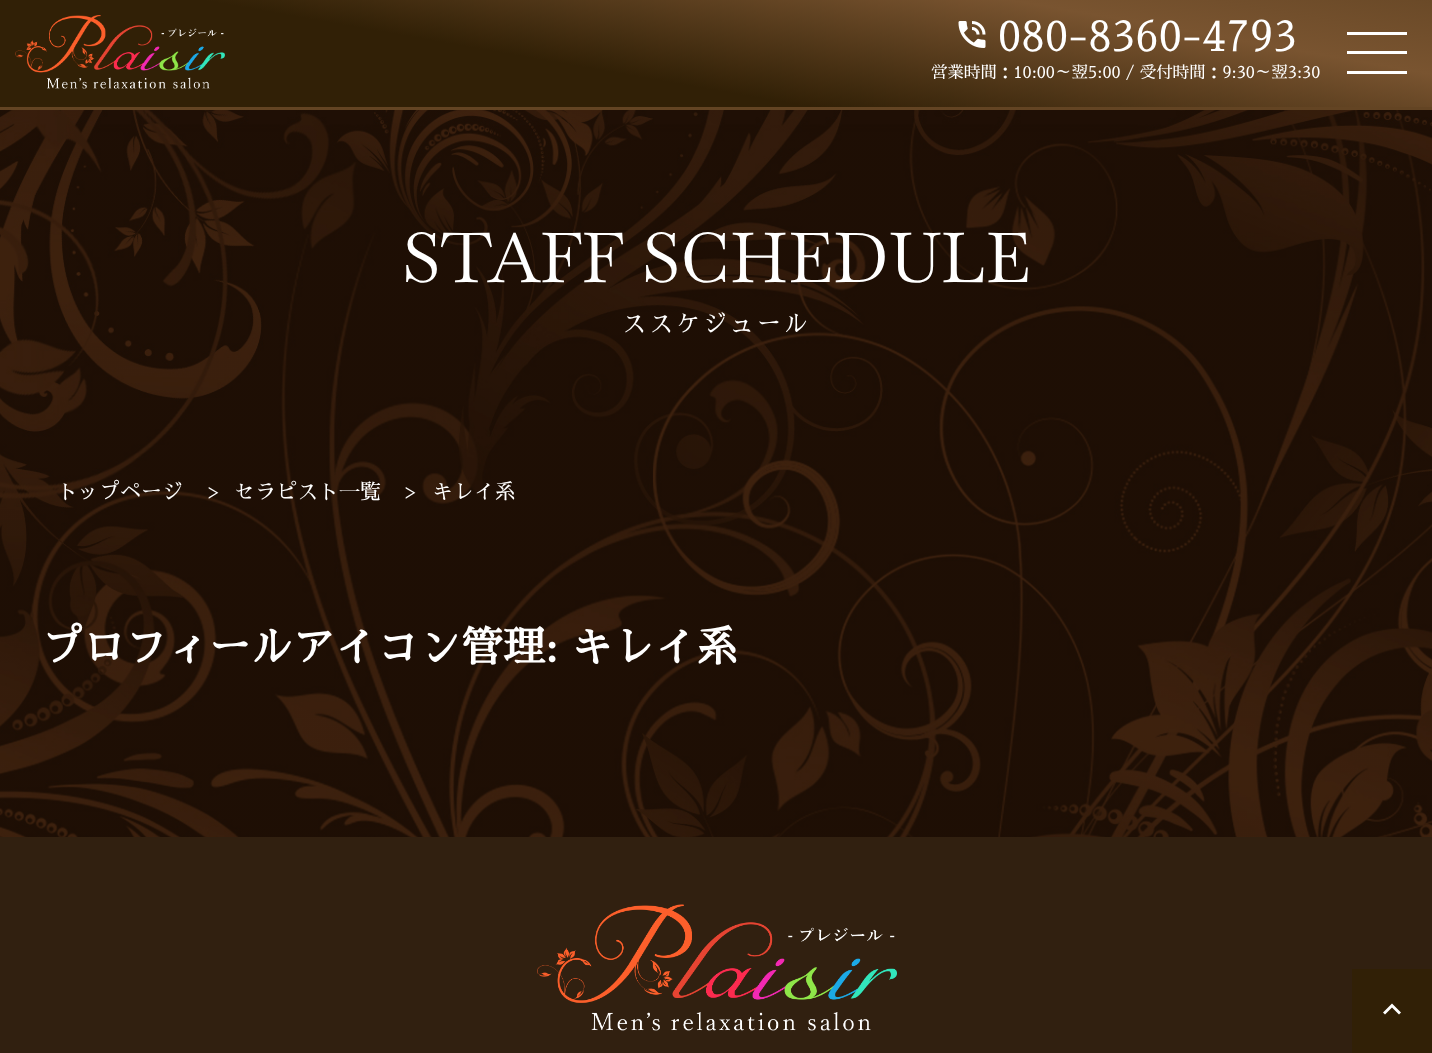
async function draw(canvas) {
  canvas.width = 1432
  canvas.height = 1053
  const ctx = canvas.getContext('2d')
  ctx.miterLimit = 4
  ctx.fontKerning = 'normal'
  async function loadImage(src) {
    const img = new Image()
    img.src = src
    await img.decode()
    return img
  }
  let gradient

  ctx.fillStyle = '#fff'
  ctx.fillRect(0, 0, 1432, 1053)
  gradient = ctx.createLinearGradient(686, 227, 796, -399)
  gradient.addColorStop(0.22, '#312006')
  gradient.addColorStop(0.44, '#795430')
  gradient.addColorStop(1, '#312006')
  ctx.fillStyle = gradient
  ctx.fillRect(0, 0, 1432, 107)
  ctx.fillStyle = '#634423'
  ctx.fillRect(0, 107, 1432, 3)
  ctx.drawImage(await loadImage('image0.png'), 15, 15, 210, 74)
  ctx.drawImage(await loadImage('image1.png'), 958, 21, 28, 27)
  ctx.font = '42px Sawarabi Mincho'
  ctx.fillStyle = '#fff'
  ctx.fillText('080-8360-4793', 998, 51)
  ctx.font = '16.5px Sawarabi Mincho'
  ctx.fillText('営業時間：10:00～翌5:00 / 受付時間：9:30～翌3:30', 931, 78)
  ctx.fillRect(1347, 32, 60, 3)
  ctx.fillRect(1347, 51, 60, 3)
  ctx.fillRect(1347, 71, 60, 3)
  ctx.drawImage(await loadImage('image2.png'), 0, 110, 1432, 727)
  ctx.font = '69px Baskervville'
  ctx.fillText('STAFF SCHEDULE', 402, 282)
  ctx.letterSpacing = '3px'
  ctx.font = '24px Sawarabi Mincho'
  ctx.fillText('ススケジュール', 622, 332)
  ctx.letterSpacing = '0px'
  ctx.font = '21px Sawarabi Mincho'
  ctx.fillText('トップページ', 57, 499)
  ctx.fillText('>', 208, 499)
  ctx.fillText('セラピスト一覧', 234, 499)
  ctx.fillText('>', 405, 499)
  ctx.fillText('キレイ系', 432, 499)
  ctx.font = 'bold 42px Sawarabi Mincho'
  ctx.fillText('プロフィールアイコン管理: キレイ系', 41, 662)
  ctx.fillStyle = '#312010'
  ctx.fillRect(0, 837, 1432, 216)
  ctx.drawImage(await loadImage('image3.png'), 537, 904, 360, 127)
  ctx.fillStyle = '#312006'
  ctx.fillRect(1352, 969, 80, 84)
  ctx.fillStyle = '#fff'
  ctx.beginPath()
  ctx.moveTo(1392, 1003.5)
  ctx.lineTo(1401, 1012.5)
  ctx.lineTo(1399, 1014.5)
  ctx.lineTo(1392, 1007.5)
  ctx.lineTo(1385, 1014.5)
  ctx.lineTo(1383, 1012.5)
  ctx.closePath()
  ctx.fill()
}

draw(document.querySelector('canvas'))
